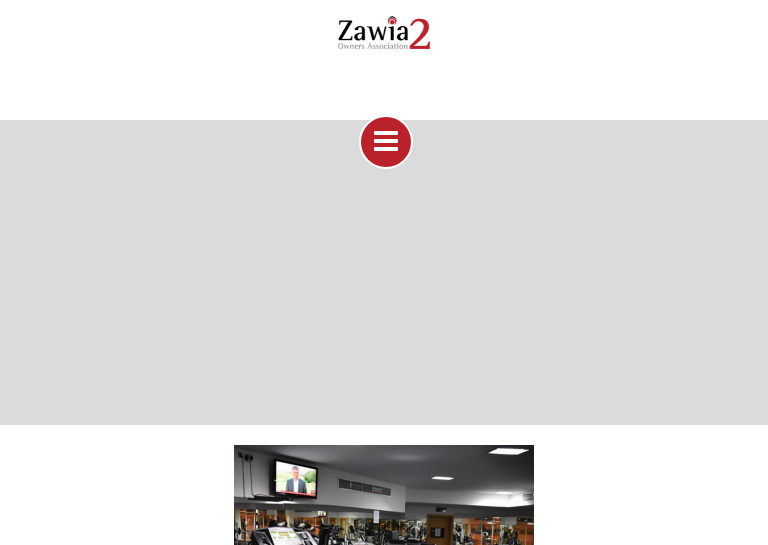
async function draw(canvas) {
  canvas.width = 768
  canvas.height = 545
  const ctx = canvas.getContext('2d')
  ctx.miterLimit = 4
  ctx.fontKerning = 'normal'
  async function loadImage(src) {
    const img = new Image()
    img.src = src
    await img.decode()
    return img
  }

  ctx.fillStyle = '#dbdbdb'
  ctx.fillRect(0, 0, 768, 545)
  ctx.fillStyle = '#fff'
  ctx.fillRect(0, 0, 768, 120)
  ctx.drawImage(await loadImage('image0.png'), 337, 16, 94, 33)
  ctx.fillStyle = '#ba212a'
  ctx.beginPath()
  ctx.arc(386, 142, 26, 0, 2 * Math.PI)
  ctx.fill()
  ctx.strokeStyle = '#fff'
  ctx.lineWidth = 2
  ctx.stroke()
  ctx.drawImage(await loadImage('image1.png'), 374, 131, 24, 20)
  ctx.fillStyle = '#fff'
  ctx.fillRect(0, 425, 768, 120)
  ctx.drawImage(await loadImage('image2.png'), 234, 445, 300, 100)
}

draw(document.querySelector('canvas'))
